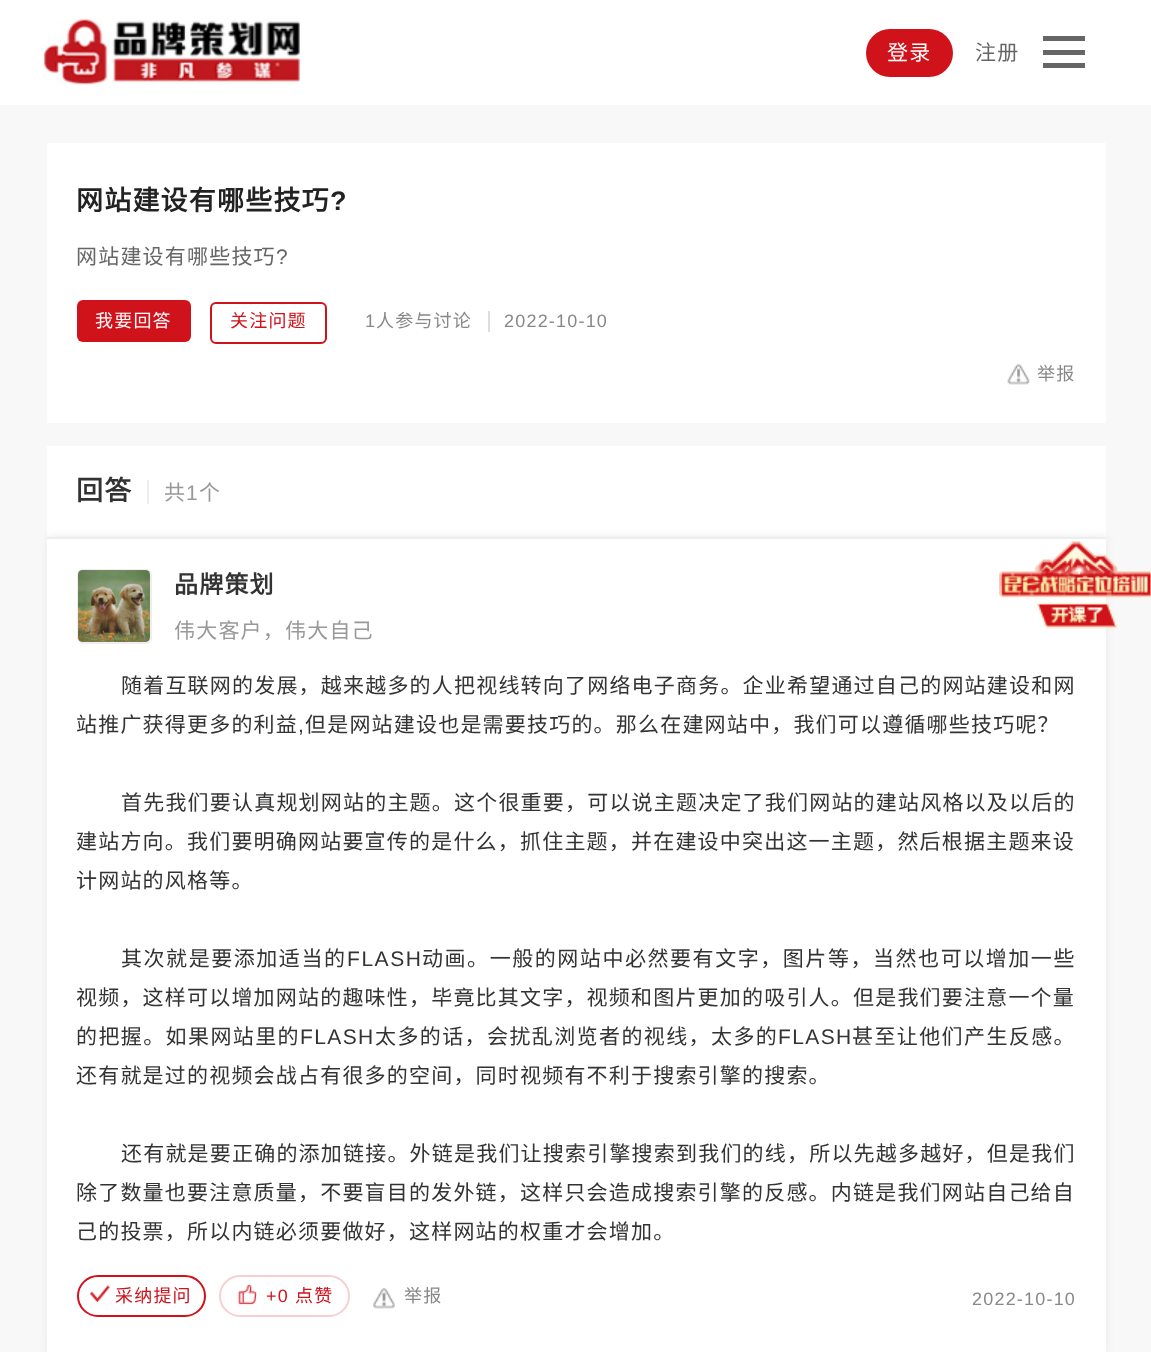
async function draw(canvas) {
  canvas.width = 1151
  canvas.height = 1352
  const ctx = canvas.getContext('2d')
  ctx.miterLimit = 4
  ctx.fontKerning = 'normal'
  async function loadImage(src) {
    const img = new Image()
    img.src = src
    await img.decode()
    return img
  }

  ctx.fillStyle = '#fff'
  ctx.fillRect(0, 0, 1151, 1352)
  ctx.drawImage(await loadImage('image0.png'), 43, 18, 257, 67)
  ctx.fillStyle = '#666'
  ctx.fillRect(1043, 50, 42, 5)
  ctx.fillRect(1043, 36, 42, 5)
  ctx.fillRect(1043, 63, 42, 5)
  ctx.fillStyle = '#d0121b'
  ctx.beginPath()
  ctx.roundRect(866, 29, 87, 48, 24)
  ctx.fill()
  ctx.letterSpacing = '1.2px'
  ctx.font = '21px Noto Sans CJK SC'
  ctx.fillStyle = '#fff'
  ctx.fillText('登录', 887, 60)
  ctx.fillStyle = '#666'
  ctx.fillText('注册', 975, 60)
  ctx.fillStyle = '#f8f8f8'
  ctx.fillRect(0, 105, 1151, 1247)
  ctx.fillStyle = '#fff'
  ctx.fillRect(47, 143, 1059, 280)
  ctx.font = 'bold 27px Noto Sans CJK SC'
  ctx.fillStyle = '#222'
  ctx.fillText('网站建设有哪些技巧', 76, 210)
  ctx.font = 'bold 27px Liberation Sans'
  ctx.fillText('?', 330, 210)
  ctx.font = '21px Noto Sans CJK SC'
  ctx.fillStyle = '#666'
  ctx.fillText('网站建设有哪些技巧', 76, 264)
  ctx.font = '21px Liberation Sans'
  ctx.fillText('?', 276, 264)
  ctx.fillStyle = '#d0121b'
  ctx.beginPath()
  ctx.roundRect(77, 300, 114, 42, 6)
  ctx.fill()
  ctx.font = '18px Noto Sans CJK SC'
  ctx.fillStyle = '#fff'
  ctx.fillText('我要回答', 95, 327)
  ctx.beginPath()
  ctx.roundRect(211, 303, 115, 40, 5)
  ctx.strokeStyle = '#d0121b'
  ctx.lineWidth = 2
  ctx.stroke()
  ctx.fillStyle = '#d0121b'
  ctx.fillText('关注问题', 230, 327)
  ctx.font = '18px Liberation Sans'
  ctx.fillStyle = '#888'
  ctx.fillText('1', 365, 327)
  ctx.font = '18px Noto Sans CJK SC'
  ctx.fillText('人参与讨论', 376, 327)
  ctx.font = '18px Liberation Sans'
  ctx.fillText('2022-10-10', 504, 327)
  ctx.fillStyle = '#ddd'
  ctx.fillRect(488, 311, 2, 21)
  ctx.drawImage(await loadImage('image1.png'), 1007, 364, 23, 21)
  ctx.font = '18px Noto Sans CJK SC'
  ctx.fillStyle = '#888'
  ctx.fillText('举报', 1037, 380)
  ctx.fillStyle = '#fff'
  ctx.fillRect(47, 446, 1059, 906)
  ctx.font = 'bold 27px Noto Sans CJK SC'
  ctx.fillStyle = '#333'
  ctx.fillText('回答', 76, 500)
  ctx.font = '21px Noto Sans CJK SC'
  ctx.fillStyle = '#999'
  ctx.fillText('共', 164, 500)
  ctx.fillStyle = '#eee'
  ctx.fillRect(147, 480, 2, 24)
  ctx.font = '21px Liberation Sans'
  ctx.fillStyle = '#999'
  ctx.fillText('1', 186, 500)
  ctx.font = '21px Noto Sans CJK SC'
  ctx.fillText('个', 199, 500)
  ctx.save()
  ctx.beginPath()
  ctx.moveTo(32, 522)
  ctx.lineTo(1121, 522)
  ctx.lineTo(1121, 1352)
  ctx.lineTo(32, 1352)
  ctx.closePath()
  ctx.moveTo(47, 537)
  ctx.lineTo(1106, 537)
  ctx.lineTo(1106, 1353)
  ctx.lineTo(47, 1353)
  ctx.closePath()
  ctx.clip('evenodd')
  ctx.fillStyle = '#e9e9e9'
  ctx.filter = 'blur(4.5px)'
  ctx.beginPath()
  ctx.rect(47, 537, 1059, 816)
  ctx.fill()
  ctx.filter = 'none'
  ctx.restore()
  ctx.fillStyle = '#eee'
  ctx.fillRect(47, 537, 1059, 2)
  ctx.beginPath()
  ctx.roundRect(78, 570, 73, 73, 5)
  ctx.strokeStyle = '#eee'
  ctx.stroke()
  ctx.drawImage(await loadImage('image2.png'), 78, 570, 72, 72)
  ctx.font = 'bold 24px Noto Sans CJK SC'
  ctx.fillStyle = '#333'
  ctx.fillText('品牌策划', 174, 593)
  ctx.font = '21px Noto Sans CJK SC'
  ctx.fillStyle = '#999'
  ctx.fillText('伟大客户，伟大自己', 174, 638)
  ctx.fillStyle = '#333'
  ctx.fillText('随着互联网的发展，越来越多的人把视线转向了网络电子商务。企业希望通过自己的网站建设和网', 121, 693)
  ctx.fillText('站推广获得更多的利益', 76, 732)
  ctx.font = '21px Liberation Sans'
  ctx.fillText(',', 298, 732)
  ctx.font = '21px Noto Sans CJK SC'
  ctx.fillText('但是网站建设也是需要技巧的。那么在建网站中，我们可以遵循哪些技巧呢？', 305, 732)
  ctx.fillText('首先我们要认真规划网站的主题。这个很重要，可以说主题决定了我们网站的建站风格以及以后的', 121, 810)
  ctx.fillText('建站方向。我们要明确网站要宣传的是什么，抓住主题，并在建设中突出这一主题，然后根据主题来设', 76, 849)
  ctx.fillText('计网站的风格等。', 76, 888)
  ctx.letterSpacing = '1.55px'
  ctx.fillText('其次就是要添加适当的', 121, 966)
  ctx.font = '21px Liberation Sans'
  ctx.fillText('FLASH', 347, 966)
  ctx.font = '21px Noto Sans CJK SC'
  ctx.fillText('动画。一般的网站中必然要有文字，图片等，当然也可以增加一些', 422, 966)
  ctx.letterSpacing = '1.2px'
  ctx.fillText('视频，这样可以增加网站的趣味性，毕竟比其文字，视频和图片更加的吸引人。但是我们要注意一个量', 76, 1005)
  ctx.letterSpacing = '1.4px'
  ctx.fillText('的把握。如果网站里的', 76, 1044)
  ctx.font = '21px Liberation Sans'
  ctx.fillText('FLASH', 300, 1044)
  ctx.font = '21px Noto Sans CJK SC'
  ctx.fillText('太多的话，会扰乱浏览者的视线，太多的', 375, 1044)
  ctx.font = '21px Liberation Sans'
  ctx.fillText('FLASH', 778, 1044)
  ctx.font = '21px Noto Sans CJK SC'
  ctx.fillText('甚至让他们产生反感。', 852, 1044)
  ctx.letterSpacing = '1.2px'
  ctx.fillText('还有就是过的视频会战占有很多的空间，同时视频有不利于搜索引擎的搜索。', 76, 1083)
  ctx.fillText('还有就是要正确的添加链接。外链是我们让搜索引擎搜索到我们的线，所以先越多越好，但是我们', 121, 1161)
  ctx.fillText('除了数量也要注意质量，不要盲目的发外链，这样只会造成搜索引擎的反感。内链是我们网站自己给自', 76, 1200)
  ctx.fillText('己的投票，所以内链必须要做好，这样网站的权重才会增加。', 76, 1239)
  ctx.beginPath()
  ctx.roundRect(78, 1276, 127, 40, 20)
  ctx.strokeStyle = '#d0121b'
  ctx.stroke()
  ctx.drawImage(await loadImage('image3.png'), 90, 1285, 20, 17)
  ctx.font = '18px Noto Sans CJK SC'
  ctx.fillStyle = '#d0121b'
  ctx.fillText('采纳提问', 115, 1302)
  ctx.beginPath()
  ctx.roundRect(220, 1276, 129, 40, 20)
  ctx.strokeStyle = '#f6d0d1'
  ctx.stroke()
  ctx.drawImage(await loadImage('image4.png'), 237, 1284, 20, 21)
  ctx.font = '18px Liberation Sans'
  ctx.fillText('+0', 266, 1302)
  ctx.font = '18px Noto Sans CJK SC'
  ctx.fillText('点赞', 295, 1302)
  ctx.drawImage(await loadImage('image5.png'), 373, 1288, 22, 21)
  ctx.fillStyle = '#888'
  ctx.fillText('举报', 404, 1302)
  ctx.font = '18px Liberation Sans'
  ctx.fillText('2022-10-10', 972, 1305)
  ctx.drawImage(await loadImage('image6.png'), 999, 541, 152, 88)
}

draw(document.querySelector('canvas'))
